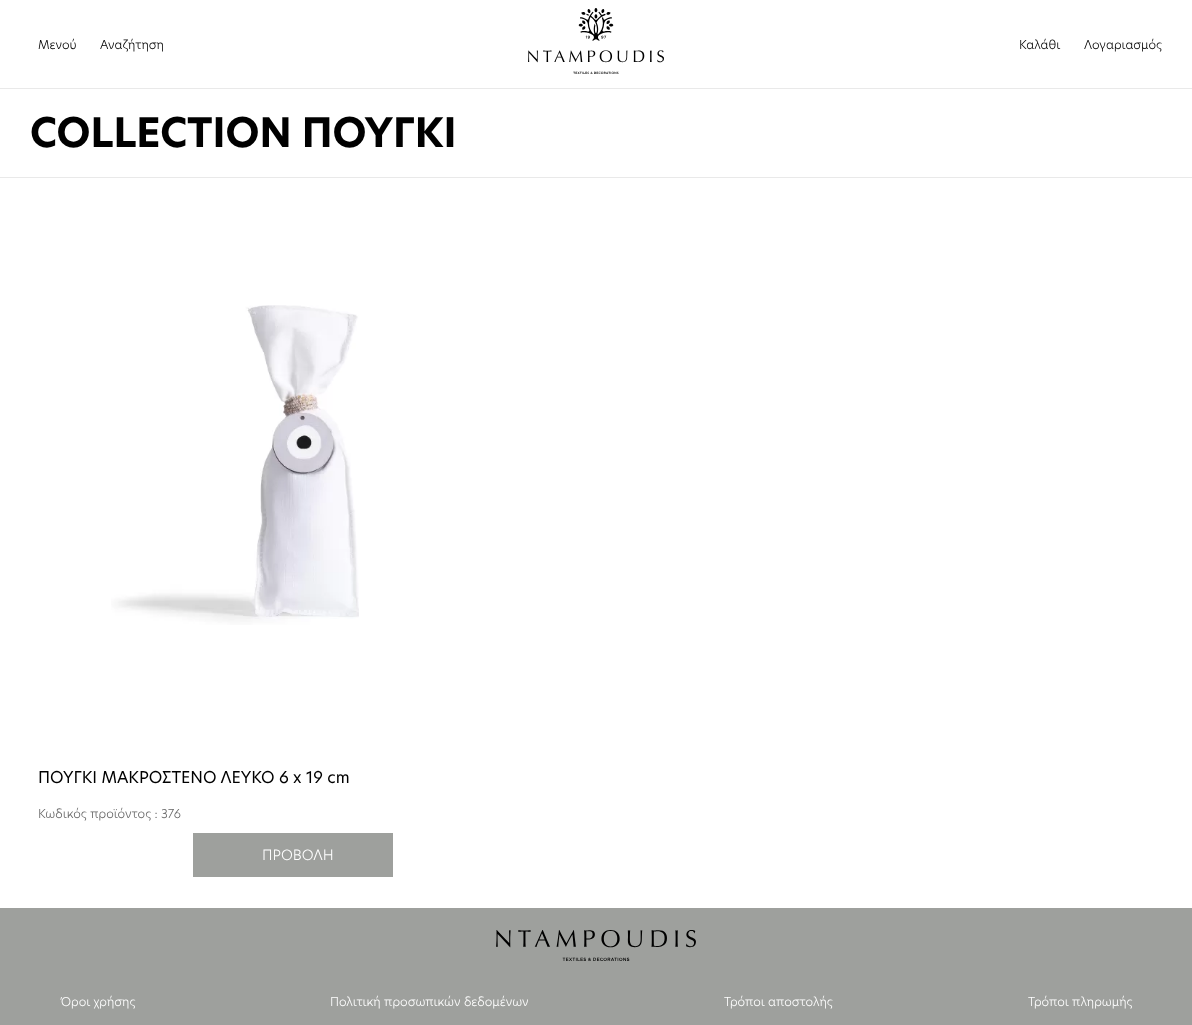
async function draw(canvas) {
  canvas.width = 1192
  canvas.height = 1025
  const ctx = canvas.getContext('2d')
  ctx.miterLimit = 4
  ctx.fontKerning = 'normal'
  async function loadImage(src) {
    const img = new Image()
    img.src = src
    await img.decode()
    return img
  }

  ctx.fillStyle = '#fff'
  ctx.fillRect(0, 0, 1192, 1025)
  ctx.font = '300 12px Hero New'
  ctx.fillStyle = '#000'
  ctx.fillText('Μενού', 38, 49)
  ctx.fillText('Αναζήτηση', 100, 49)
  ctx.drawImage(await loadImage('image0.png'), 528, 8, 136, 66)
  ctx.fillText('Καλάθι', 1019, 49)
  ctx.fillText('Λογαριασμός', 1084, 49)
  ctx.fillStyle = '#e9e9e9'
  ctx.fillRect(0, 88, 1192, 1)
  ctx.fillRect(0, 177, 1192, 1)
  ctx.font = 'bold 40px Hero New'
  ctx.fillStyle = '#000'
  ctx.fillText('COLLECTION ΠΟΥΓΚΙ', 30, 147)
  ctx.drawImage(await loadImage('image1.png'), 111, 305, 248, 320)
  ctx.font = '16px Hero New'
  ctx.fillText('ΠΟΥΓΚΙ ΜΑΚΡΟΣΤΕΝΟ ΛΕΥΚΟ 6 x 19 cm', 38, 783)
  ctx.font = '300 12px Hero New'
  ctx.fillStyle = '#666'
  ctx.fillText('Κωδικός προϊόντος : 376', 38, 818)
  ctx.fillStyle = '#9ea09d'
  ctx.fillRect(193, 833, 200, 44)
  ctx.font = '300 14px Hero New'
  ctx.fillStyle = '#fff'
  ctx.fillText('ΠΡΟΒΟΛΗ', 262, 860)
  ctx.fillStyle = '#9ea09d'
  ctx.fillRect(0, 908, 1192, 117)
  ctx.drawImage(await loadImage('image2.png'), 496, 930, 200, 31)
  ctx.font = '300 12px Hero New'
  ctx.fillStyle = '#fff'
  ctx.fillText('Όροι χρήσης', 60, 1006)
  ctx.fillText('Πολιτική προσωπικών δεδομένων', 330, 1006)
  ctx.fillText('Τρόποι αποστολής', 724, 1006)
  ctx.fillText('Τρόποι πληρωμής', 1028, 1006)
}

draw(document.querySelector('canvas'))
